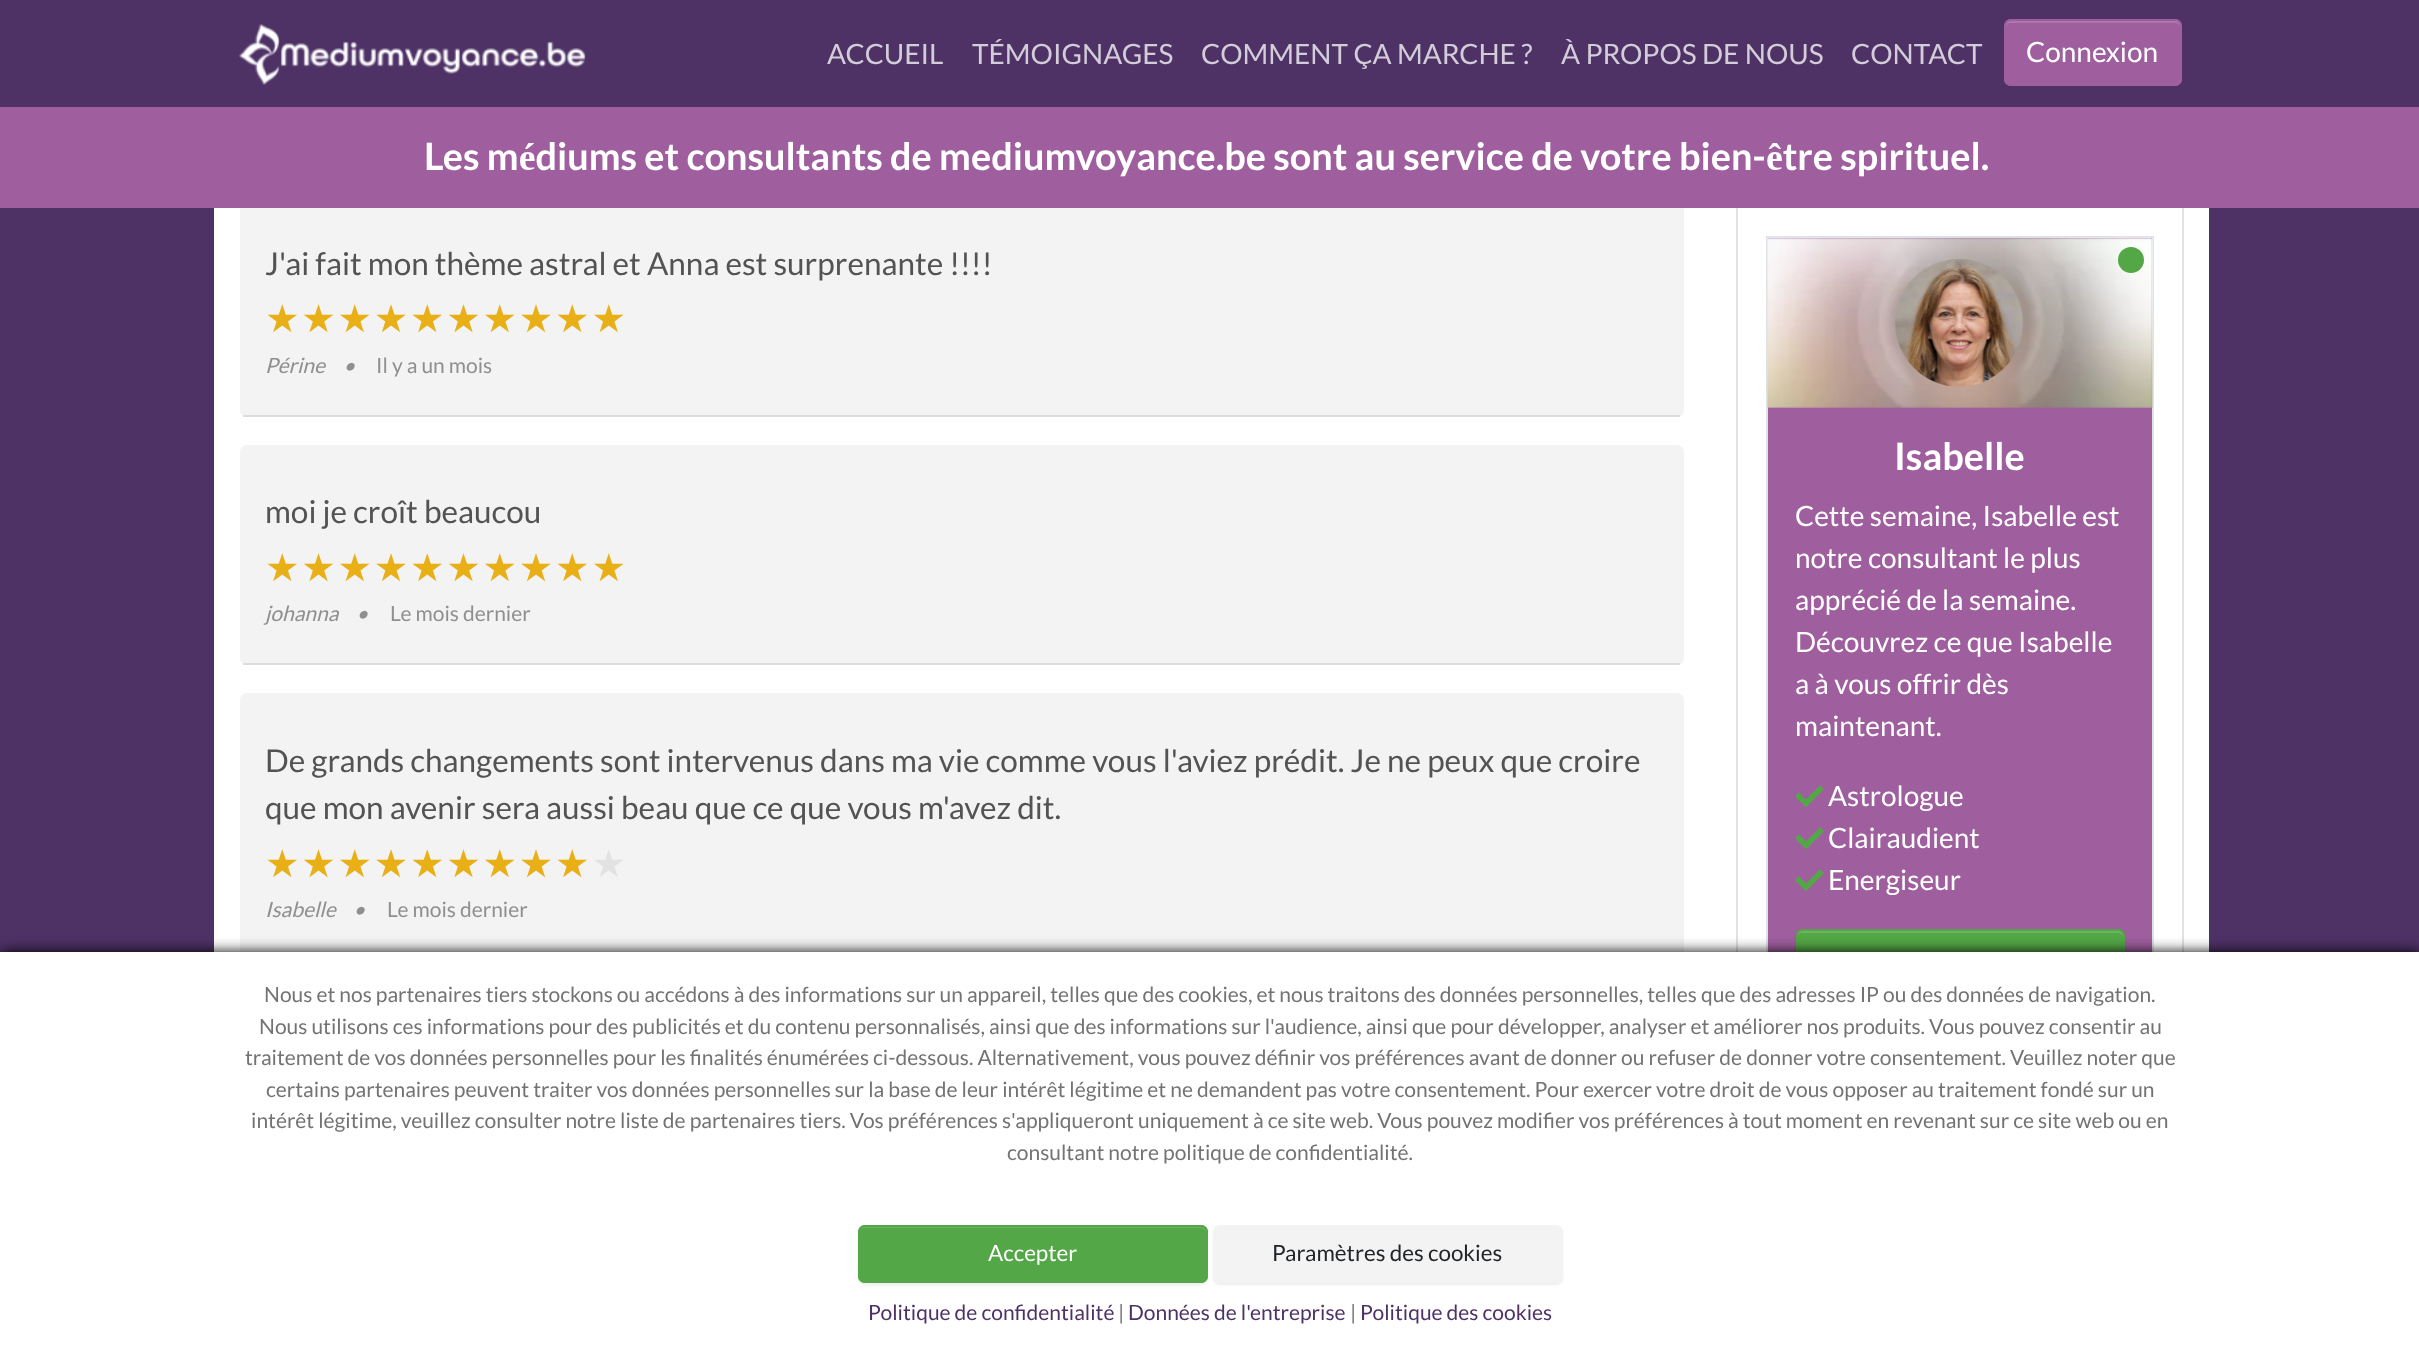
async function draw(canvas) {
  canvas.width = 2419
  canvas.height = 1369
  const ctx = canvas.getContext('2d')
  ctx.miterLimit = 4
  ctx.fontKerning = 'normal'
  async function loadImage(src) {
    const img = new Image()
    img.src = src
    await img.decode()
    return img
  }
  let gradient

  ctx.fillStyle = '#4e3266'
  ctx.fillRect(0, 0, 2419, 1369)
  ctx.drawImage(await loadImage('image0.png'), 239, 24, 347, 62)
  ctx.font = '28px Lato'
  ctx.fillStyle = '#d3ccd9'
  ctx.fillText('ACCUEIL', 827, 64)
  ctx.fillText('TÉMOIGNAGES', 972, 64)
  ctx.fillText('COMMENT ÇA MARCHE ?', 1201, 64)
  ctx.fillText('À PROPOS DE NOUS', 1561, 64)
  ctx.fillText('CONTACT', 1851, 64)
  ctx.fillStyle = '#9f5f9e'
  ctx.beginPath()
  ctx.roundRect(2004, 19, 178, 67, 7)
  ctx.fill()
  ctx.fillStyle = '#ad77ad'
  ctx.beginPath()
  ctx.moveTo(2011, 23)
  ctx.lineTo(2175, 23)
  ctx.bezierCurveTo(2178, 23, 2180, 25, 2180, 28)
  ctx.lineTo(2180, 80)
  ctx.lineTo(2180, 83)
  ctx.bezierCurveTo(2180, 82, 2181, 80, 2181, 79)
  ctx.lineTo(2181, 26)
  ctx.bezierCurveTo(2181, 23, 2179, 21, 2176, 21)
  ctx.lineTo(2011, 21)
  ctx.bezierCurveTo(2008, 21, 2006, 23, 2006, 26)
  ctx.lineTo(2006, 28)
  ctx.bezierCurveTo(2006, 25, 2008, 23, 2011, 23)
  ctx.closePath()
  ctx.fill()
  ctx.beginPath()
  ctx.roundRect(2005, 20, 176, 65, 6)
  ctx.strokeStyle = '#9f5f9e'
  ctx.lineWidth = 2
  ctx.stroke()
  ctx.fillStyle = '#fff'
  ctx.fillText('Connexion', 2026, 62)
  ctx.fillRect(214, 208, 1995, 744)
  ctx.fillStyle = '#f3f3f3'
  ctx.beginPath()
  ctx.roundRect(240, 196, 1444, 221, 7)
  ctx.fill()
  ctx.strokeStyle = '#dee2e6'
  ctx.strokeRect(1737, 125, 446, 971)
  ctx.fillStyle = '#9f5f9e'
  ctx.fillRect(0, 107, 2419, 101)
  ctx.font = 'bold 37.8px Lato'
  ctx.fillStyle = '#fff'
  ctx.fillText('Les médiums et consultants de mediumvoyance.be sont au service de votre bien-être spirituel.', 424, 170)
  ctx.fillStyle = '#ddd'
  ctx.fillRect(243, 415, 1437, 2)
  ctx.font = '31.5px Lato'
  ctx.fillStyle = '#535353'
  ctx.fillText('J\'ai fait mon thème astral et Anna est surprenante !!!!', 265, 275)
  ctx.letterSpacing = '1.75px'
  ctx.font = '38.5px DejaVu Sans'
  gradient = ctx.createLinearGradient(265, 319, 628, 319)
  gradient.addColorStop(1, '#e9af17')
  gradient.addColorStop(1, '#e2e2e2')
  ctx.fillStyle = gradient
  ctx.fillText('★★★★★★★★★★', 265, 332)
  ctx.letterSpacing = '0px'
  ctx.font = 'italic 21px Lato'
  ctx.fillStyle = '#8f8f8f'
  ctx.fillText('Périne', 265, 373)
  ctx.fillText('•', 343, 373)
  ctx.font = '21px Lato'
  ctx.fillText('Il y a un mois', 376, 373)
  ctx.fillStyle = '#f3f3f3'
  ctx.beginPath()
  ctx.roundRect(240, 445, 1444, 220, 7)
  ctx.fill()
  ctx.fillStyle = '#ddd'
  ctx.fillRect(243, 663, 1437, 2)
  ctx.font = '31.5px Lato'
  ctx.fillStyle = '#535353'
  ctx.fillText('moi je croît beaucou', 265, 523)
  ctx.letterSpacing = '1.75px'
  ctx.font = '38.5px DejaVu Sans'
  gradient = ctx.createLinearGradient(265, 568, 628, 568)
  gradient.addColorStop(1, '#e9af17')
  gradient.addColorStop(1, '#e2e2e2')
  ctx.fillStyle = gradient
  ctx.fillText('★★★★★★★★★★', 265, 581)
  ctx.letterSpacing = '0px'
  ctx.font = 'italic 21px Lato'
  ctx.fillStyle = '#8f8f8f'
  ctx.fillText('johanna', 265, 621)
  ctx.fillText('•', 356, 621)
  ctx.font = '21px Lato'
  ctx.fillText('Le mois dernier', 390, 621)
  ctx.fillStyle = '#f3f3f3'
  ctx.beginPath()
  ctx.roundRect(240, 693, 1444, 268, 7)
  ctx.fill()
  ctx.font = '31.5px Lato'
  ctx.fillStyle = '#535353'
  ctx.fillText('De grands changements sont intervenus dans ma vie comme vous l\'aviez prédit. Je ne peux que croire', 265, 772)
  ctx.fillText('que mon avenir sera aussi beau que ce que vous m\'avez dit.', 265, 819)
  ctx.letterSpacing = '1.75px'
  ctx.font = '38.5px DejaVu Sans'
  gradient = ctx.createLinearGradient(265, 864, 628, 864)
  gradient.addColorStop(0.9, '#e9af17')
  gradient.addColorStop(0.9, '#e2e2e2')
  ctx.fillStyle = gradient
  ctx.fillText('★★★★★★★★★★', 265, 877)
  ctx.letterSpacing = '0px'
  ctx.font = 'italic 21px Lato'
  ctx.fillStyle = '#8f8f8f'
  ctx.fillText('Isabelle', 265, 917)
  ctx.fillText('•', 353, 917)
  ctx.font = '21px Lato'
  ctx.fillText('Le mois dernier', 387, 917)
  ctx.fillStyle = '#9f5f9e'
  ctx.fillRect(1768, 238, 384, 714)
  ctx.strokeRect(1767, 237, 386, 830)
  ctx.drawImage(await loadImage('image1.png'), 1767, 237, 386, 171)
  ctx.drawImage(await loadImage('image2.png'), 1895, 259, 129, 128)
  ctx.fillStyle = '#54a747'
  ctx.beginPath()
  ctx.arc(2131, 260, 13, 0, 2 * Math.PI)
  ctx.fill()
  ctx.font = 'bold 37.8px Lato'
  ctx.fillStyle = '#fff'
  ctx.fillText('Isabelle', 1894, 470)
  ctx.font = '28px Lato'
  ctx.fillText('Cette semaine, Isabelle est', 1795, 526)
  ctx.fillText('notre consultant le plus', 1795, 568)
  ctx.fillText('apprécié de la semaine.', 1795, 610)
  ctx.fillText('Découvrez ce que Isabelle', 1795, 652)
  ctx.fillText('a à vous offrir dès', 1795, 694)
  ctx.fillText('maintenant.', 1795, 736)
  ctx.drawImage(await loadImage('image3.png'), 1795, 785, 29, 22)
  ctx.fillText('Astrologue', 1828, 806)
  ctx.drawImage(await loadImage('image3.png'), 1795, 827, 29, 22)
  ctx.fillText('Clairaudient', 1828, 848)
  ctx.drawImage(await loadImage('image3.png'), 1795, 869, 29, 22)
  ctx.fillText('Energiseur', 1828, 890)
  ctx.fillStyle = '#00000012'
  ctx.filter = 'blur(1px)'
  ctx.beginPath()
  ctx.roundRect(1796, 931, 329, 109, 7)
  ctx.fill()
  ctx.filter = 'none'
  ctx.fillStyle = '#54a747'
  ctx.beginPath()
  ctx.roundRect(1796, 929, 329, 109, 7)
  ctx.fill()
  ctx.fillStyle = '#6eb463'
  ctx.beginPath()
  ctx.moveTo(1802, 933)
  ctx.lineTo(2118, 933)
  ctx.bezierCurveTo(2120, 933, 2123, 935, 2123, 938)
  ctx.lineTo(2123, 936)
  ctx.bezierCurveTo(2123, 933, 2121, 931, 2118, 931)
  ctx.lineTo(1802, 931)
  ctx.bezierCurveTo(1799, 931, 1797, 933, 1797, 936)
  ctx.lineTo(1797, 938)
  ctx.bezierCurveTo(1797, 935, 1800, 933, 1802, 933)
  ctx.closePath()
  ctx.fill()
  ctx.beginPath()
  ctx.roundRect(1797, 930, 327, 107, 6)
  ctx.strokeStyle = '#54a747'
  ctx.stroke()
  ctx.fillStyle = '#000'
  ctx.filter = 'blur(7px)'
  ctx.beginPath()
  ctx.rect(0, 952, 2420, 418)
  ctx.fill()
  ctx.filter = 'none'
  ctx.fillStyle = '#fff'
  ctx.fillRect(0, 952, 2419, 417)
  ctx.font = '21px Lato'
  ctx.fillStyle = '#737373'
  ctx.fillText('Nous et nos partenaires tiers stockons ou accédons à des informations sur un appareil, telles que des cookies, et nous traitons des données personnelles, telles que des adresses IP ou des données de navigation.', 264, 1002)
  ctx.fillText('Nous utilisons ces informations pour des publicités et du contenu personnalisés, ainsi que des informations sur l\'audience, ainsi que pour développer, analyser et améliorer nos produits. Vous pouvez consentir au', 259, 1034)
  ctx.fillText('traitement de vos données personnelles pour les finalités énumérées ci-dessous. Alternativement, vous pouvez définir vos préférences avant de donner ou refuser de donner votre consentement. Veuillez noter que', 245, 1065)
  ctx.fillText('certains partenaires peuvent traiter vos données personnelles sur la base de leur intérêt légitime et ne demandent pas votre consentement. Pour exercer votre droit de vous opposer au traitement fondé sur un', 266, 1097)
  ctx.fillText('intérêt légitime, veuillez consulter notre liste de partenaires tiers. Vos préférences s\'appliqueront uniquement à ce site web. Vous pouvez modifier vos préférences à tout moment en revenant sur ce site web ou en', 251, 1128)
  ctx.fillText('consultant notre politique de confidentialité.', 1007, 1160)
  ctx.fillStyle = '#00000012'
  ctx.filter = 'blur(1px)'
  ctx.beginPath()
  ctx.roundRect(858, 1227, 350, 58, 7)
  ctx.fill()
  ctx.filter = 'none'
  ctx.fillStyle = '#54a747'
  ctx.beginPath()
  ctx.roundRect(858, 1225, 350, 58, 7)
  ctx.fill()
  ctx.fillStyle = '#6eb463'
  ctx.beginPath()
  ctx.moveTo(864, 1228)
  ctx.lineTo(1200, 1228)
  ctx.bezierCurveTo(1203, 1228, 1206, 1231, 1206, 1234)
  ctx.bezierCurveTo(1206, 1231, 1205, 1227, 1201, 1227)
  ctx.lineTo(864, 1227)
  ctx.bezierCurveTo(860, 1227, 859, 1231, 859, 1234)
  ctx.bezierCurveTo(859, 1231, 862, 1228, 864, 1228)
  ctx.closePath()
  ctx.fill()
  ctx.beginPath()
  ctx.roundRect(859, 1226, 348, 56, 6)
  ctx.stroke()
  ctx.font = '22.4px Lato'
  ctx.fillStyle = '#fff'
  ctx.fillText('Accepter', 988, 1261)
  ctx.fillStyle = '#00000012'
  ctx.filter = 'blur(1px)'
  ctx.beginPath()
  ctx.roundRect(1213, 1227, 350, 58, 7)
  ctx.fill()
  ctx.filter = 'none'
  ctx.fillStyle = '#f3f3f3'
  ctx.beginPath()
  ctx.roundRect(1214, 1226, 348, 56, 6)
  ctx.fill()
  ctx.strokeStyle = '#f3f3f3'
  ctx.stroke()
  ctx.fillStyle = '#212529'
  ctx.fillText('Paramètres des cookies', 1272, 1261)
  ctx.font = '21px Lato'
  ctx.fillStyle = '#4e3266'
  ctx.fillText('Politique de confidentialité', 868, 1320)
  ctx.fillStyle = '#737373'
  ctx.fillText('|', 1118, 1320)
  ctx.fillStyle = '#4e3266'
  ctx.fillText('Données de l\'entreprise', 1128, 1320)
  ctx.fillStyle = '#737373'
  ctx.fillText('|', 1350, 1320)
  ctx.fillStyle = '#4e3266'
  ctx.fillText('Politique des cookies', 1360, 1320)
}

draw(document.querySelector('canvas'))
